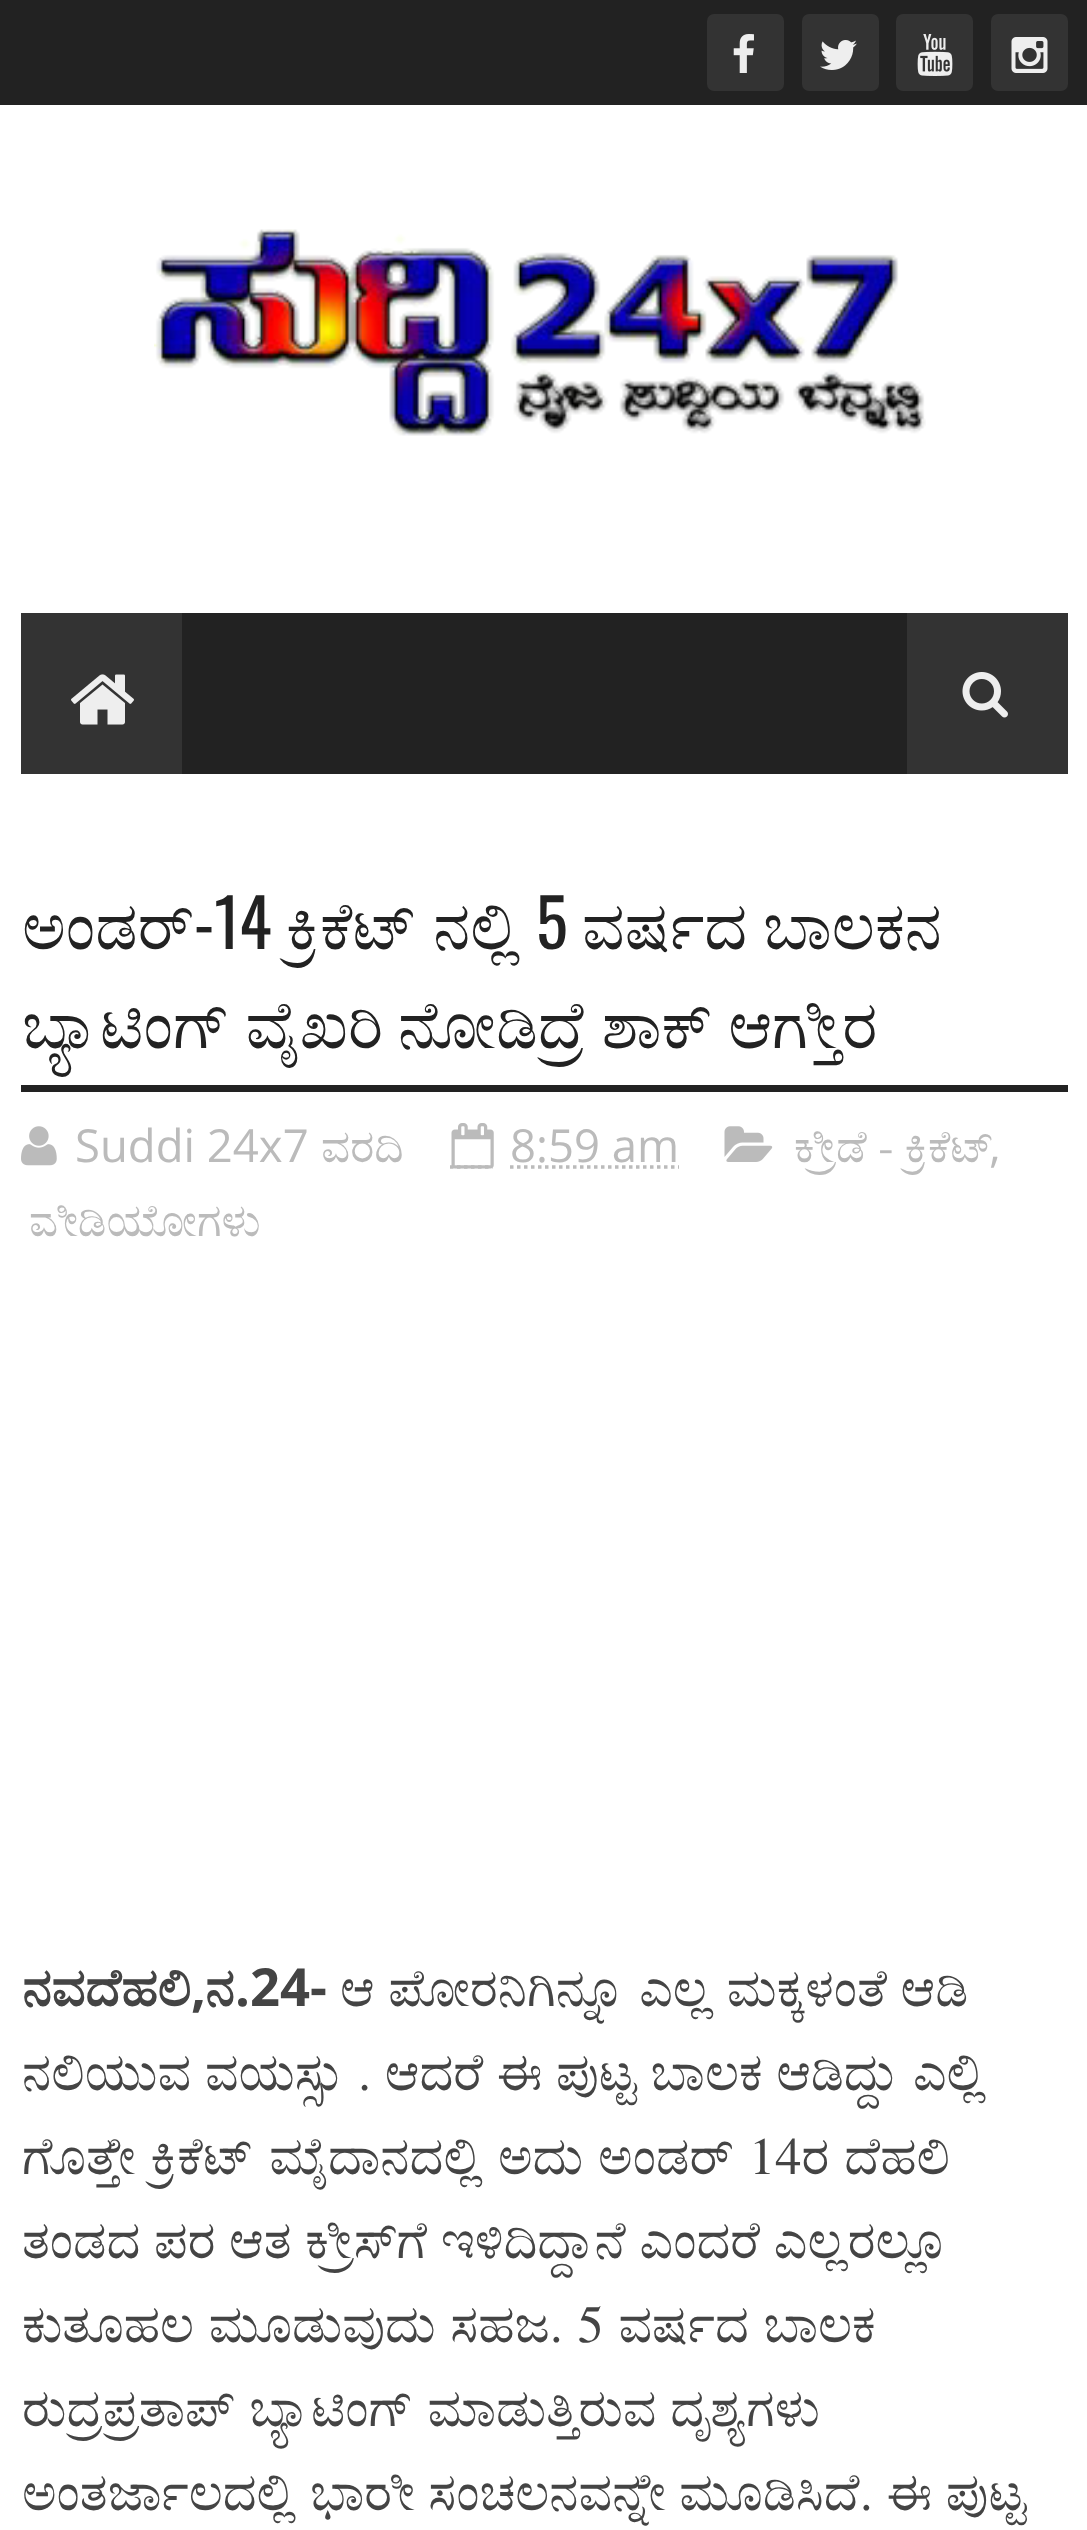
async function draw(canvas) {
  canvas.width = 1087
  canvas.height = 2530
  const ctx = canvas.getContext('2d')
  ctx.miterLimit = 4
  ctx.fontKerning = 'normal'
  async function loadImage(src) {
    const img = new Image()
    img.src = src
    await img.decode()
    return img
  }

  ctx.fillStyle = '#fff'
  ctx.fillRect(0, 0, 1087, 2530)
  ctx.fillStyle = '#222'
  ctx.fillRect(0, 0, 1087, 105)
  ctx.fillStyle = '#333'
  ctx.beginPath()
  ctx.roundRect(707, 14, 77, 77, 7)
  ctx.fill()
  ctx.drawImage(await loadImage('image0.png'), 733, 34, 21, 39)
  ctx.beginPath()
  ctx.roundRect(802, 14, 77, 77, 7)
  ctx.fill()
  ctx.drawImage(await loadImage('image1.png'), 820, 40, 37, 30)
  ctx.beginPath()
  ctx.roundRect(896, 14, 77, 77, 7)
  ctx.fill()
  ctx.drawImage(await loadImage('image2.png'), 917, 34, 36, 42)
  ctx.beginPath()
  ctx.roundRect(991, 14, 77, 77, 7)
  ctx.fill()
  ctx.drawImage(await loadImage('image3.png'), 1011, 37, 37, 36)
  ctx.drawImage(await loadImage('image4.png'), 154, 229, 772, 207)
  ctx.fillStyle = '#222'
  ctx.fillRect(182, 613, 725, 161)
  ctx.fillStyle = '#333'
  ctx.fillRect(21, 613, 161, 161)
  ctx.drawImage(await loadImage('image5.png'), 71, 674, 63, 51)
  ctx.fillRect(907, 613, 161, 161)
  ctx.drawImage(await loadImage('image6.png'), 962, 672, 46, 46)
  ctx.fillStyle = '#222'
  ctx.fillRect(21, 1085, 1047, 7)
  ctx.font = '66.5px FreeSerif'
  ctx.fillText('ಅಂಡರ್', 22, 949)
  ctx.font = '66.5px Oswald'
  ctx.fillText('-14', 194, 949)
  ctx.wordSpacing = '-1px'
  ctx.font = '66.5px FreeSerif'
  ctx.fillText('ಕ್ರಿಕೆಟ್ ನಲ್ಲಿ', 286, 949)
  ctx.wordSpacing = '0px'
  ctx.font = '66.5px Oswald'
  ctx.fillText('5', 536, 949)
  ctx.wordSpacing = '-1px'
  ctx.font = '66.5px FreeSerif'
  ctx.fillText('ವರ್ಷದ ಬಾಲಕನ', 582, 949)
  ctx.save()
  ctx.beginPath()
  ctx.rect(21, 861, 1047, 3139)
  ctx.clip()
  ctx.wordSpacing = '-1.5px'
  ctx.fillText('ಬ್ಯಾಟಿಂಗ್ ವೈಖರಿ ನೋಡಿದ್ರೆ ಶಾಕ್ ಆಗ್ತೀರ', 22, 1048)
  ctx.restore()
  ctx.drawImage(await loadImage('image7.png'), 21, 1126, 36, 40)
  ctx.wordSpacing = '0px'
  ctx.font = '45.5px Open Sans'
  ctx.fillStyle = '#bbb'
  ctx.fillText('Suddi 24x7', 75, 1162)
  ctx.font = '45.5px FreeSerif'
  ctx.fillText('ವರದಿ', 321, 1162)
  ctx.beginPath()
  ctx.moveTo(450, 1167)
  ctx.lineTo(492.5, 1167)
  ctx.strokeStyle = '#bbb'
  ctx.lineWidth = 3.5
  ctx.setLineDash([3.5, 3.5])
  ctx.stroke()
  ctx.drawImage(await loadImage('image8.png'), 451, 1123, 43, 46)
  ctx.font = '45.5px Open Sans'
  ctx.fillText('8:59 am', 510, 1162)
  ctx.beginPath()
  ctx.moveTo(510, 1167)
  ctx.lineTo(679, 1167)
  ctx.stroke()
  ctx.drawImage(await loadImage('image9.png'), 724, 1126, 49, 36)
  ctx.font = '45.5px FreeSerif'
  ctx.fillText('ಕ್ರೀಡೆ - ಕ್ರಿಕೆಟ್', 794, 1162)
  ctx.font = '45.5px Open Sans'
  ctx.fillText(',', 989, 1162)
  ctx.font = '45.5px FreeSerif'
  ctx.fillText('ವೀಡಿಯೋಗಳು', 29, 1236)
  ctx.font = 'bold 52.5px FreeSerif'
  ctx.fillStyle = '#444'
  ctx.fillText('ನವದೆಹಲಿ', 22, 2006)
  ctx.font = 'bold 52.5px Open Sans'
  ctx.fillText(',', 191, 2006)
  ctx.font = 'bold 52.5px FreeSerif'
  ctx.fillText('ನ', 205, 2006)
  ctx.font = 'bold 52.5px Open Sans'
  ctx.fillText('.24-', 235, 2006)
  ctx.wordSpacing = '0.5px'
  ctx.font = '52.5px FreeSerif'
  ctx.fillText('ಆ ಪೋರನಿಗಿನ್ನೂ ಎಲ್ಲ ಮಕ್ಕಳಂತೆ ಆಡಿ', 340, 2006)
  ctx.fillText('ನಲಿಯುವ ವಯಸ್ಸು . ಆದರೆ ಈ ಪುಟ್ಟ ಬಾಲಕ ಆಡಿದ್ದು ಎಲ್ಲಿ', 22, 2090)
  ctx.save()
  ctx.beginPath()
  ctx.rect(21, 1309, 1047, 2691)
  ctx.clip()
  ctx.wordSpacing = '1.75px'
  ctx.fillText('ಗೊತ್ತೇ ಕ್ರಿಕೆಟ್ ಮೈದಾನದಲ್ಲಿ ಅದು ಅಂಡರ್ 14ರ ದೆಹಲಿ', 22, 2174)
  ctx.restore()
  ctx.fillText('ತಂಡದ ಪರ ಆತ ಕ್ರೀಸ್‍ಗೆ ಇಳಿದಿದ್ದಾನೆ ಎಂದರೆ ಎಲ್ಲರಲ್ಲೂ', 22, 2258)
  ctx.save()
  ctx.beginPath()
  ctx.rect(21, 1309, 1047, 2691)
  ctx.clip()
  ctx.wordSpacing = '1.5px'
  ctx.fillText('ಕುತೂಹಲ ಮೂಡುವುದು ಸಹಜ. 5 ವರ್ಷದ ಬಾಲಕ', 22, 2342)
  ctx.wordSpacing = '0.5px'
  ctx.fillText('ರುದ್ರಪ್ರತಾಪ್ ಬ್ಯಾಟಿಂಗ್ ಮಾಡುತ್ತಿರುವ ದೃಶ್ಯಗಳು', 22, 2426)
  ctx.restore()
  ctx.fillText('ಅಂತರ್ಜಾಲದಲ್ಲಿ ಭಾರೀ ಸಂಚಲನವನ್ನೇ ಮೂಡಿಸಿದೆ. ಈ ಪುಟ್ಟ', 22, 2510)
}

draw(document.querySelector('canvas'))
